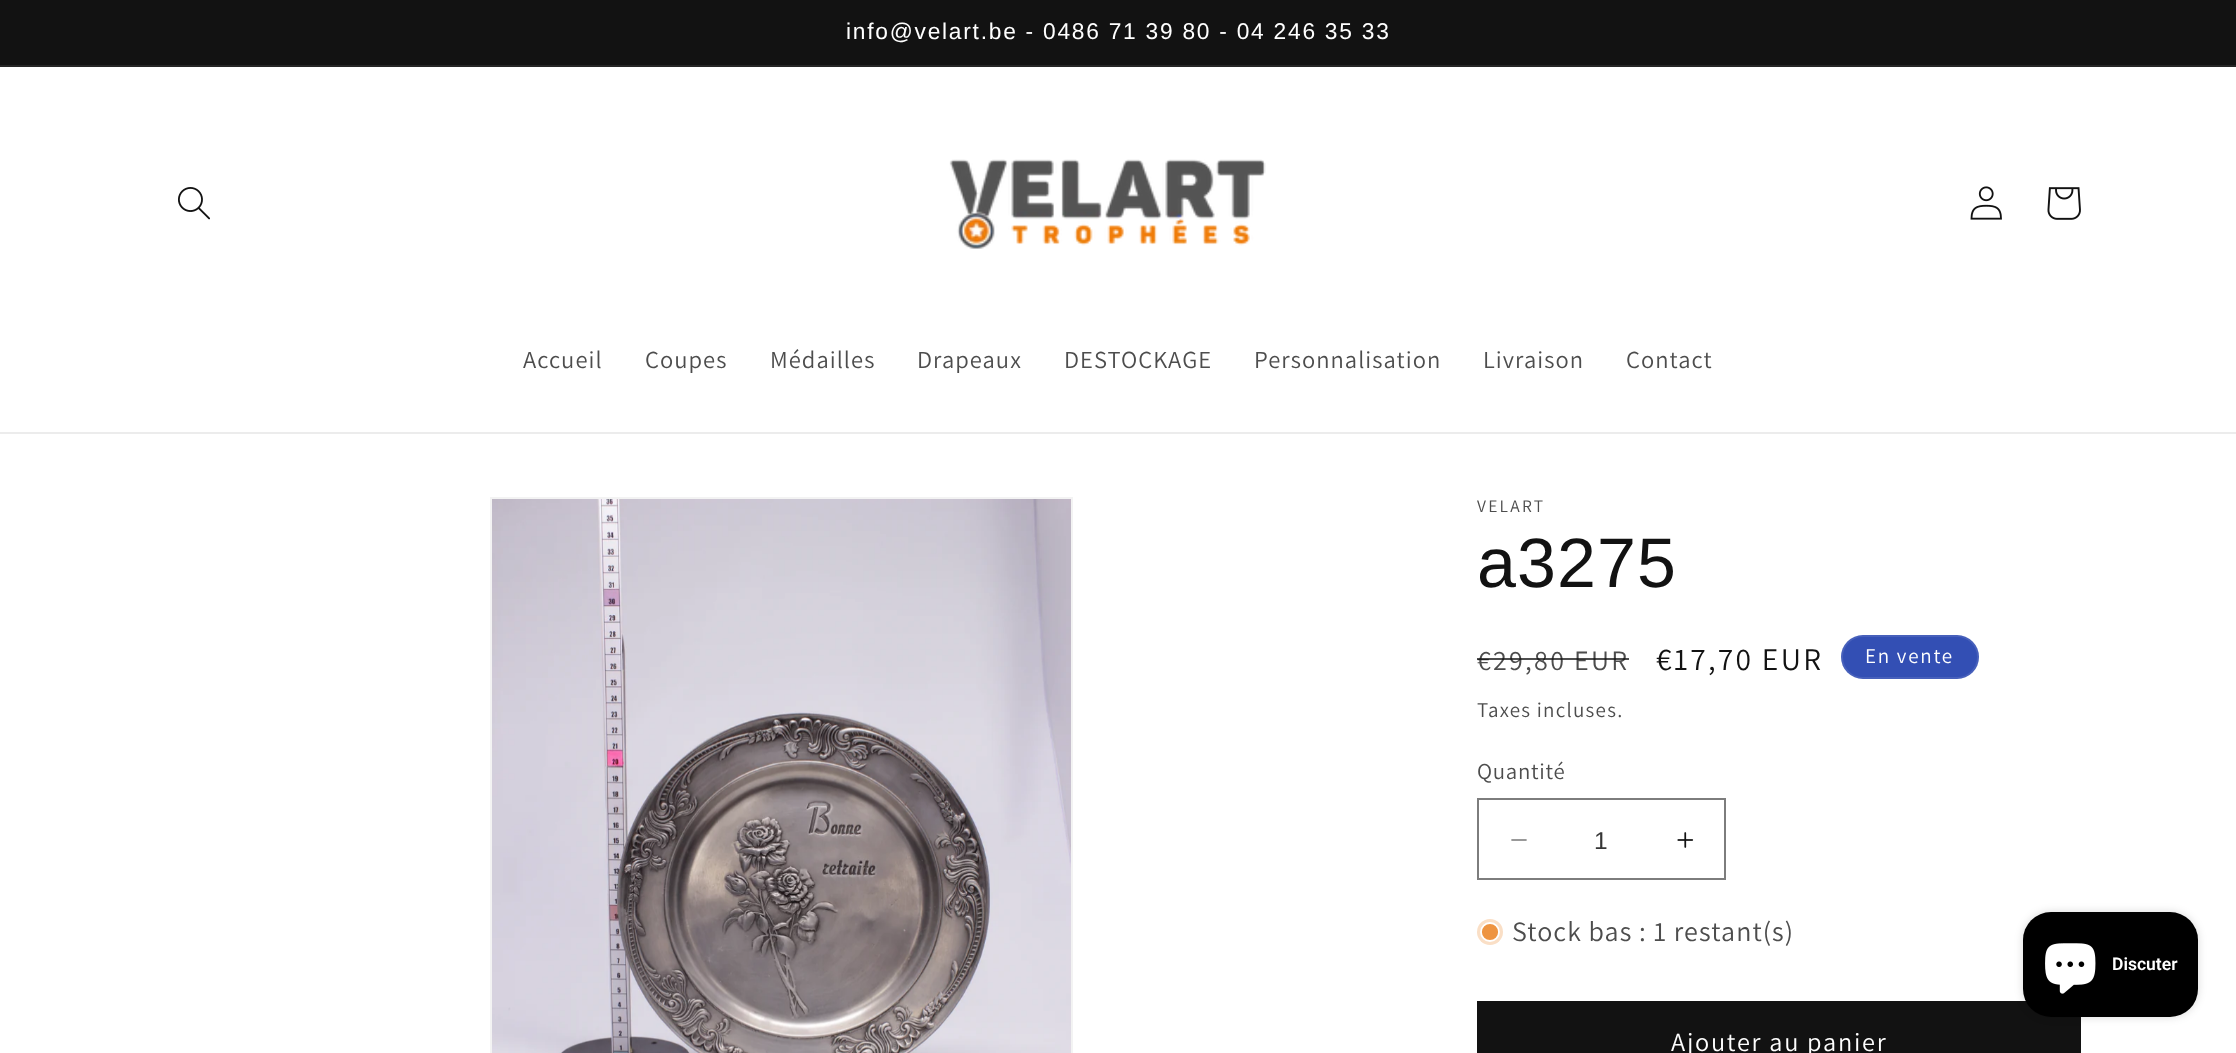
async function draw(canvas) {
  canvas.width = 2236
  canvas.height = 1053
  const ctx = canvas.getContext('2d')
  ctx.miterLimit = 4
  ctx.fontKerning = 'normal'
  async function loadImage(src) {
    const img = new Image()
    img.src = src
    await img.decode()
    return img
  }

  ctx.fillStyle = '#fff'
  ctx.fillRect(0, 0, 2236, 1053)
  ctx.fillStyle = '#121212'
  ctx.fillRect(0, 0, 2236, 65)
  ctx.fillStyle = '#252525'
  ctx.fillRect(0, 65, 2236, 2)
  ctx.letterSpacing = '1.75px'
  ctx.font = '22.75px Arimo'
  ctx.fillStyle = '#fff'
  ctx.fillText('info@velart.be - 0486 71 39 80 - 04 246 35 33', 846, 39)
  ctx.fillStyle = '#ececec'
  ctx.fillRect(0, 432, 2236, 2)
  ctx.drawImage(await loadImage('image0.png'), 178, 187, 32, 33)
  ctx.drawImage(await loadImage('image1.png'), 949, 159, 317, 90)
  ctx.drawImage(await loadImage('image2.png'), 1970, 186, 32, 34)
  ctx.drawImage(await loadImage('image3.png'), 2047, 187, 34, 33)
  ctx.letterSpacing = '1.05px'
  ctx.font = '24.5px Assistant'
  ctx.fillStyle = '#4d4d4d'
  ctx.fillText('Accueil', 523, 368)
  ctx.fillText('Coupes', 645, 368)
  ctx.fillText('Médailles', 770, 368)
  ctx.fillText('Drapeaux', 917, 368)
  ctx.fillText('DESTOCKAGE', 1064, 368)
  ctx.fillText('Personnalisation', 1254, 368)
  ctx.fillText('Livraison', 1483, 368)
  ctx.fillText('Contact', 1626, 368)
  ctx.strokeStyle = '#f3f3f3'
  ctx.lineWidth = 2
  ctx.strokeRect(491, 498, 581, 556)
  ctx.drawImage(await loadImage('image4.png'), 492, 499, 579, 554)
  ctx.letterSpacing = '2.25px'
  ctx.font = '17.5px Assistant'
  ctx.fillText('VELART', 1477, 512)
  ctx.letterSpacing = '1.05px'
  ctx.font = '70px Arimo'
  ctx.fillStyle = '#121212'
  ctx.fillText('a3275', 1477, 587)
  ctx.letterSpacing = '2.25px'
  ctx.font = '28px Assistant'
  ctx.fillStyle = '#4d4d4d'
  ctx.fillText('€29,80 EUR', 1477, 670)
  ctx.fillStyle = '#121212bf'
  ctx.fillRect(1477, 658, 152, 2)
  ctx.font = '31.5px Assistant'
  ctx.fillStyle = '#121212'
  ctx.fillText('€17,70 EUR', 1656, 670)
  ctx.fillStyle = '#334fb4'
  ctx.beginPath()
  ctx.roundRect(1841, 635, 138, 44, 22)
  ctx.fill()
  ctx.beginPath()
  ctx.roundRect(1842, 636, 136, 42, 21)
  ctx.strokeStyle = '#ffffff1a'
  ctx.stroke()
  ctx.letterSpacing = '1.75px'
  ctx.font = '21px Assistant'
  ctx.fillStyle = '#fff'
  ctx.fillText('En vente', 1865, 663)
  ctx.letterSpacing = '1.25px'
  ctx.fillStyle = '#4d4d4d'
  ctx.fillText('Taxes incluses.', 1477, 717)
  ctx.letterSpacing = '0.75px'
  ctx.font = '22.75px Assistant'
  ctx.fillText('Quantité', 1477, 779)
  ctx.drawImage(await loadImage('image5.png'), 1511, 839, 16, 2)
  ctx.drawImage(await loadImage('image6.png'), 1677, 832, 17, 16)
  ctx.strokeStyle = '#7d7d7d'
  ctx.strokeRect(1478, 799, 247, 80)
  ctx.letterSpacing = '0px'
  ctx.font = '24.5px Liberation Sans'
  ctx.fillStyle = '#363636'
  ctx.fillText('1', 1594, 849)
  ctx.fillStyle = '#fadfc6'
  ctx.beginPath()
  ctx.arc(1490, 932, 13, 0, 2 * Math.PI)
  ctx.fill()
  ctx.fillStyle = '#ee9441'
  ctx.beginPath()
  ctx.arc(1490, 932, 9, 0, 2 * Math.PI)
  ctx.fill()
  ctx.strokeStyle = '#fff'
  ctx.lineWidth = 1.8
  ctx.stroke()
  ctx.letterSpacing = '1.05px'
  ctx.font = '28px Assistant'
  ctx.fillStyle = '#4d4d4d'
  ctx.fillText('Stock bas : 1 restant(s)', 1512, 941)
  ctx.fillStyle = '#121212'
  ctx.fillRect(1477, 1001, 604, 52)
  ctx.letterSpacing = '1.75px'
  ctx.font = '26.25px Assistant'
  ctx.fillStyle = '#fff'
  ctx.fillText('Ajouter au panier', 1671, 1051)
  ctx.fillStyle = '#00000026'
  ctx.filter = 'blur(4.5px)'
  ctx.beginPath()
  ctx.roundRect(2023, 912, 175, 105, 28)
  ctx.fill()
  ctx.filter = 'none'
  ctx.fillStyle = '#000'
  ctx.beginPath()
  ctx.roundRect(2023, 912, 175, 105, 28)
  ctx.fill()
  ctx.drawImage(await loadImage('image7.png'), 2045, 943, 51, 51)
  ctx.letterSpacing = '0px'
  ctx.font = '600 17.5px Roboto'
  ctx.fillStyle = '#fff'
  ctx.fillText('Discuter', 2112, 970)
}

draw(document.querySelector('canvas'))
